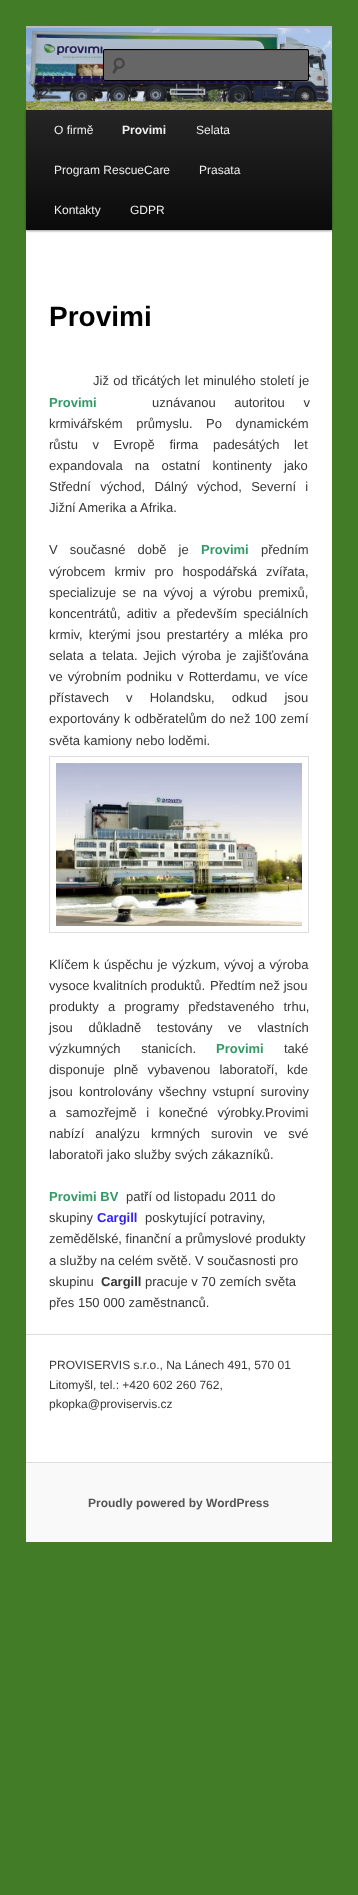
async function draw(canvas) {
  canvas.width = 358
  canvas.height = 1895
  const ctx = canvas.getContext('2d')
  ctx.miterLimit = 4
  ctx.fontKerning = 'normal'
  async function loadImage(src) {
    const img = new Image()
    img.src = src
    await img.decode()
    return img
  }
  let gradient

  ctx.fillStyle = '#427c26'
  ctx.fillRect(0, 0, 358, 1895)
  ctx.fillStyle = '#fff'
  ctx.fillRect(26, 230, 306, 1232)
  ctx.fillStyle = '#bbb'
  ctx.fillRect(26, 26, 306, 2)
  ctx.fillStyle = '#00000066'
  ctx.filter = 'blur(1px)'
  ctx.beginPath()
  ctx.rect(26, 111, 306, 120)
  ctx.fill()
  ctx.filter = 'none'
  ctx.drawImage(await loadImage('image0.png'), 26, 28, 306, 82)
  ctx.fillStyle = '#666'
  ctx.beginPath()
  ctx.roundRect(103, 49, 206, 32, 2)
  ctx.fill()
  ctx.drawImage(await loadImage('image1.png'), 112, 57, 13, 17)
  ctx.fillStyle = '#5c5c5c'
  ctx.beginPath()
  ctx.moveTo(105, 51)
  ctx.lineTo(308, 51)
  ctx.lineTo(308, 52)
  ctx.lineTo(308, 50)
  ctx.lineTo(307, 50)
  ctx.lineTo(105, 50)
  ctx.bezierCurveTo(104, 50, 104, 51, 104, 52)
  ctx.bezierCurveTo(104, 51, 104, 51, 105, 51)
  ctx.closePath()
  ctx.fill()
  ctx.beginPath()
  ctx.roundRect(103.5, 49.5, 205, 31, 1.5)
  ctx.strokeStyle = '#000'
  ctx.stroke()
  gradient = ctx.createLinearGradient(179, 110, 179, 230)
  gradient.addColorStop(0, '#252525')
  gradient.addColorStop(1, '#0a0a0a')
  ctx.fillStyle = gradient
  ctx.fillRect(26, 110, 306, 120)
  ctx.font = '12px Liberation Sans'
  ctx.fillStyle = '#eee'
  ctx.fillText('O firmě', 54, 134)
  ctx.font = 'bold 12px Liberation Sans'
  ctx.fillText('Provimi', 122, 134)
  ctx.font = '12px Liberation Sans'
  ctx.fillText('Selata', 196, 134)
  ctx.fillText('Program RescueCare', 54, 174)
  ctx.fillText('Prasata', 199, 174)
  ctx.fillText('Kontakty', 54, 214)
  ctx.fillText('GDPR', 130, 214)
  ctx.font = 'bold 28px Liberation Sans'
  ctx.fillStyle = '#000'
  ctx.fillText('Provimi', 49, 326)
  ctx.wordSpacing = '0.75px'
  ctx.font = '13px Liberation Sans'
  ctx.fillStyle = '#373737'
  ctx.fillText('Již od třicátých let minulého století je', 93, 385)
  ctx.wordSpacing = '0px'
  ctx.font = 'bold 13px Liberation Sans'
  ctx.fillStyle = '#396'
  ctx.fillText('Provimi', 49, 407)
  ctx.wordSpacing = '15px'
  ctx.font = '13px Liberation Sans'
  ctx.fillStyle = '#373737'
  ctx.fillText('uznávanou autoritou v', 152, 407)
  ctx.wordSpacing = '10px'
  ctx.fillText('krmivářském průmyslu.', 49, 428)
  ctx.fillText('Po dynamickém', 206, 428)
  ctx.wordSpacing = '11px'
  ctx.fillText('růstu v Evropě firma padesátých let', 49, 449)
  ctx.wordSpacing = '8.5px'
  ctx.fillText('expandovala na ostatní kontinenty jako', 49, 470)
  ctx.wordSpacing = '5.75px'
  ctx.fillText('Střední východ, Dálný východ, Severní i', 49, 491)
  ctx.wordSpacing = '0px'
  ctx.fillText('Jižní Amerika a Afrika.', 49, 512)
  ctx.wordSpacing = '8.5px'
  ctx.fillText('V současné době je', 49, 554)
  ctx.wordSpacing = '0px'
  ctx.font = 'bold 13px Liberation Sans'
  ctx.fillStyle = '#396'
  ctx.fillText('Provimi', 201, 554)
  ctx.font = '13px Liberation Sans'
  ctx.fillStyle = '#373737'
  ctx.fillText('předním', 261, 554)
  ctx.wordSpacing = '5.5px'
  ctx.fillText('výrobcem krmiv pro hospodářská zvířata,', 49, 576)
  ctx.wordSpacing = '2.75px'
  ctx.fillText('specializuje se na vývoj a výrobu premixů,', 49, 597)
  ctx.wordSpacing = '2.5px'
  ctx.fillText('koncentrátů, aditiv a především speciálních', 49, 618)
  ctx.fillText('krmiv, kterými jsou prestartéry a mléka pro', 49, 639)
  ctx.wordSpacing = '2px'
  ctx.fillText('selata a telata.', 49, 660)
  ctx.fillText('Jejich výroba je zajišťována', 143, 660)
  ctx.wordSpacing = '1.5px'
  ctx.fillText('ve výrobním podniku v Rotterdamu, ve více', 49, 681)
  ctx.wordSpacing = '13.5px'
  ctx.fillText('přístavech v Holandsku, odkud jsou', 49, 702)
  ctx.wordSpacing = '0.5px'
  ctx.fillText('exportovány k odběratelům do než 100 zemí', 49, 723)
  ctx.wordSpacing = '0px'
  ctx.fillText('světa kamiony nebo loděmi.', 49, 745)
  ctx.strokeStyle = '#ddd'
  ctx.strokeRect(49.5, 756.5, 259, 176)
  ctx.drawImage(await loadImage('image2.png'), 56, 763, 246, 163)
  ctx.wordSpacing = '0.75px'
  ctx.fillText('Klíčem k úspěchu je výzkum, vývoj a výroba', 49, 969)
  ctx.wordSpacing = '0px'
  ctx.fillText('vysoce kvalitních produktů.', 49, 990)
  ctx.fillText('Předtím než jsou', 210, 990)
  ctx.wordSpacing = '5.5px'
  ctx.fillText('produkty a programy představeného trhu,', 49, 1011)
  ctx.wordSpacing = '12px'
  ctx.fillText('jsou důkladně testovány ve vlastních', 49, 1032)
  ctx.wordSpacing = '17px'
  ctx.fillText('výzkumných stanicích.', 49, 1053)
  ctx.wordSpacing = '0px'
  ctx.font = 'bold 13px Liberation Sans'
  ctx.fillStyle = '#396'
  ctx.fillText('Provimi', 216, 1053)
  ctx.font = '13px Liberation Sans'
  ctx.fillStyle = '#373737'
  ctx.fillText('také', 284, 1053)
  ctx.wordSpacing = '5.5px'
  ctx.fillText('disponuje plně vybavenou laboratoří, kde', 49, 1074)
  ctx.wordSpacing = '2.5px'
  ctx.fillText('jsou kontrolovány všechny vstupní suroviny', 49, 1096)
  ctx.wordSpacing = '6px'
  ctx.fillText('a samozřejmě i konečné výrobky.', 49, 1117)
  ctx.wordSpacing = '0px'
  ctx.fillText('Provimi', 265, 1117)
  ctx.wordSpacing = '7.25px'
  ctx.fillText('nabízí analýzu krmných surovin ve své', 49, 1138)
  ctx.wordSpacing = '0px'
  ctx.fillText('laboratoři jako služby svých zákazníků.', 49, 1159)
  ctx.font = 'bold 13px Liberation Sans'
  ctx.fillStyle = '#396'
  ctx.fillText('Provimi BV', 49, 1201)
  ctx.font = '13px Liberation Sans'
  ctx.fillStyle = '#373737'
  ctx.fillText('patří od listopadu 2011 do', 126, 1201)
  ctx.fillText('skupiny', 49, 1222)
  ctx.font = 'bold 13px Liberation Sans'
  ctx.fillStyle = '#301efc'
  ctx.fillText('Cargill', 97, 1222)
  ctx.font = '13px Liberation Sans'
  ctx.fillStyle = '#373737'
  ctx.fillText('poskytující potraviny,', 145, 1222)
  ctx.fillText('zemědělské, finanční a průmyslové produkty', 49, 1243)
  ctx.fillText('a služby na celém světě. V současnosti pro', 49, 1265)
  ctx.fillText('skupinu', 49, 1286)
  ctx.font = 'bold 13px Liberation Sans'
  ctx.fillText('Cargill', 101, 1286)
  ctx.font = '13px Liberation Sans'
  ctx.fillText('pracuje v 70 zemích světa', 145, 1286)
  ctx.fillText('přes 150 000 zaměstnanců.', 49, 1307)
  ctx.fillStyle = '#ddd'
  ctx.fillRect(26, 1334, 306, 1)
  ctx.font = '12px Liberation Sans'
  ctx.fillStyle = '#373737'
  ctx.fillText('PROVISERVIS s.r.o., Na Lánech 491, 570 01', 49, 1369)
  ctx.fillText('Litomyšl, tel.: +420 602 260 762,', 49, 1389)
  ctx.fillText('pkopka@proviservis.cz', 49, 1408)
  ctx.fillStyle = '#f9f9f9'
  ctx.fillRect(26, 1463, 306, 79)
  ctx.fillStyle = '#ddd'
  ctx.fillRect(26, 1462, 306, 1)
  ctx.font = 'bold 12px Liberation Sans'
  ctx.fillStyle = '#555'
  ctx.fillText('Proudly powered by WordPress', 88, 1507)
}

draw(document.querySelector('canvas'))
